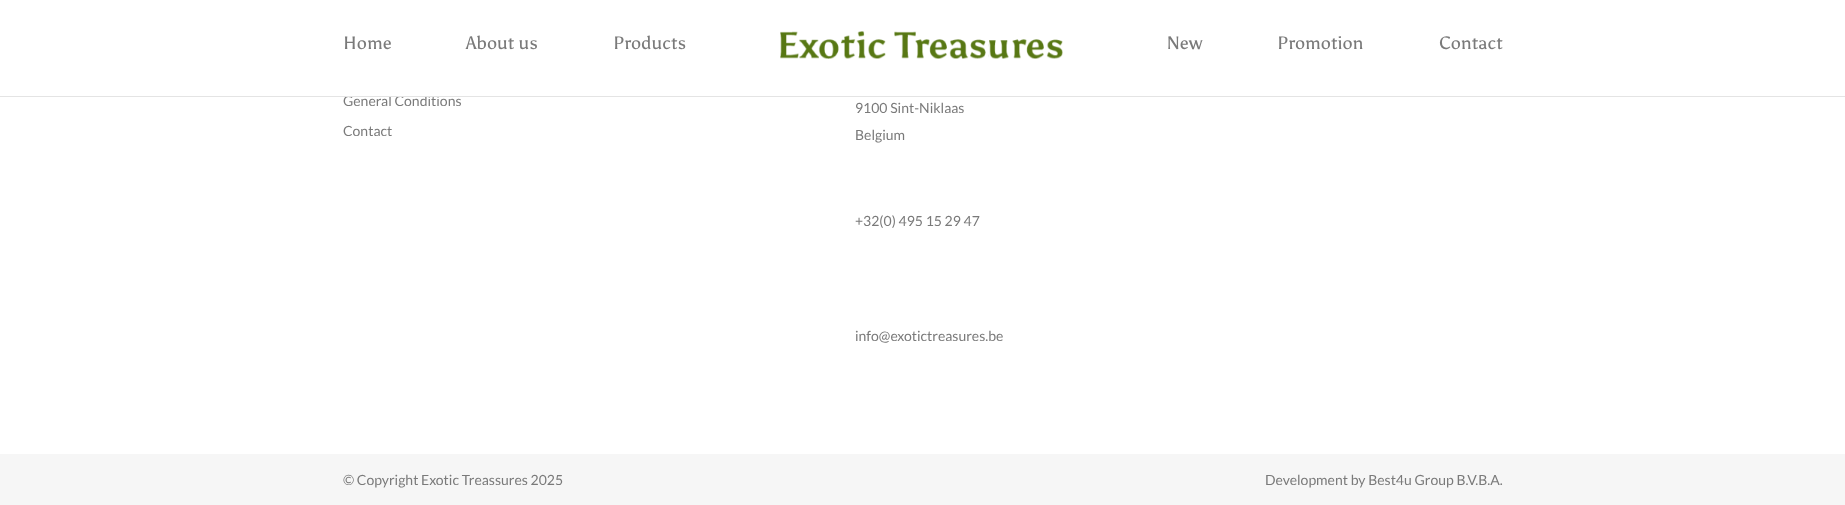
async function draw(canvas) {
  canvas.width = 1845
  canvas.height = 505
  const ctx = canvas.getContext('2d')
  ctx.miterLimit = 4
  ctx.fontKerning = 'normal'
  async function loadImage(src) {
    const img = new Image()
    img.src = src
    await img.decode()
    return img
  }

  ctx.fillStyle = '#f6f6f6'
  ctx.fillRect(0, 0, 1845, 505)
  ctx.fillStyle = '#fff'
  ctx.fillRect(0, 97, 1845, 357)
  ctx.font = '14px Lato'
  ctx.fillStyle = '#7a7a7a'
  ctx.fillText('General Conditions', 343, 106)
  ctx.fillStyle = '#fff'
  ctx.fillRect(0, 0, 1845, 96)
  ctx.fillStyle = '#e4e4e4'
  ctx.fillRect(0, 96, 1845, 1)
  ctx.font = '18px Asul'
  ctx.fillStyle = '#7a7a7a'
  ctx.fillText('Home', 343, 49)
  ctx.fillText('About us', 466, 49)
  ctx.fillText('Products', 613, 49)
  ctx.drawImage(await loadImage('image0.png'), 780, 31, 283, 28)
  ctx.fillText('New', 1167, 49)
  ctx.fillText('Promotion', 1277, 49)
  ctx.fillText('Contact', 1439, 49)
  ctx.font = '14px Lato'
  ctx.fillText('Contact', 343, 136)
  ctx.fillText('9100 Sint-Niklaas', 855, 113)
  ctx.fillText('Belgium', 855, 140)
  ctx.fillText('+32(0) 495 15 29 47', 855, 226)
  ctx.fillText('info@exotictreasures.be', 855, 341)
  ctx.fillText('© Copyright Exotic Treassures 2025', 343, 485)
  ctx.fillText('Development by Best4u Group B.V.B.A.', 1265, 485)
}

draw(document.querySelector('canvas'))
